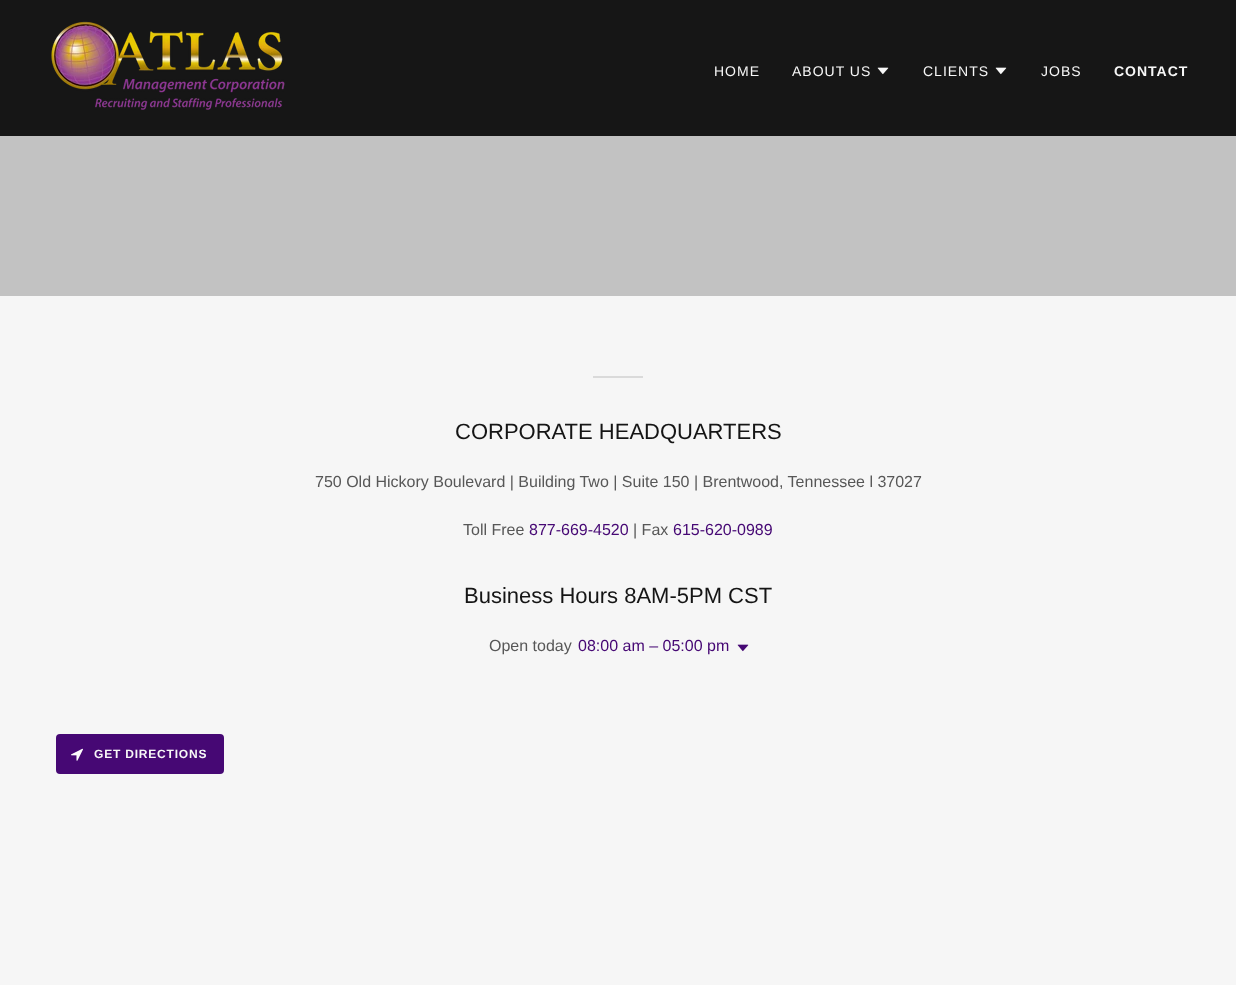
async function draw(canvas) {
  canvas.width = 1236
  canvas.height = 985
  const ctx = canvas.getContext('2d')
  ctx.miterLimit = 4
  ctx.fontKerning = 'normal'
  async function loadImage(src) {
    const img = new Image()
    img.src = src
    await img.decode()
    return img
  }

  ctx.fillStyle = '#161616'
  ctx.fillRect(0, 0, 1236, 985)
  ctx.drawImage(await loadImage('image0.png'), 51, 21, 234, 89)
  ctx.letterSpacing = '1px'
  ctx.font = '14px Liberation Sans'
  ctx.fillStyle = '#f7f7f7'
  ctx.fillText('HOME', 714, 76)
  ctx.fillText('ABOUT US', 792, 76)
  ctx.drawImage(await loadImage('image1.png'), 877, 67, 12, 8)
  ctx.fillText('CLIENTS', 923, 76)
  ctx.drawImage(await loadImage('image1.png'), 995, 67, 12, 8)
  ctx.fillText('JOBS', 1041, 76)
  ctx.font = 'bold 14px Liberation Sans'
  ctx.fillText('CONTACT', 1114, 76)
  ctx.fillStyle = '#c2c2c2'
  ctx.fillRect(0, 136, 1236, 160)
  ctx.fillStyle = '#f6f6f6'
  ctx.fillRect(0, 296, 1236, 689)
  ctx.fillStyle = '#dadada'
  ctx.fillRect(593, 376, 50, 2)
  ctx.letterSpacing = '0px'
  ctx.font = '22px Liberation Sans'
  ctx.fillStyle = '#151515'
  ctx.fillText('CORPORATE HEADQUARTERS', 455, 439)
  ctx.font = '16px Liberation Sans'
  ctx.fillStyle = '#575757'
  ctx.fillText('750 Old Hickory Boulevard | Building Two | Suite 150 | Brentwood, Tennessee l 37027', 315, 487)
  ctx.fillText('Toll Free', 463, 535)
  ctx.fillStyle = '#460874'
  ctx.fillText('877-669-4520', 529, 535)
  ctx.fillStyle = '#575757'
  ctx.fillText('| Fax', 633, 535)
  ctx.fillStyle = '#460874'
  ctx.fillText('615-620-0989', 673, 535)
  ctx.font = '22px Liberation Sans'
  ctx.fillStyle = '#151515'
  ctx.fillText('Business Hours 8AM-5PM CST', 464, 603)
  ctx.font = '16px Liberation Sans'
  ctx.fillStyle = '#575757'
  ctx.fillText('Open today', 489, 651)
  ctx.fillStyle = '#460874'
  ctx.fillText('08:00 am – 05:00 pm', 578, 651)
  ctx.drawImage(await loadImage('image2.png'), 737, 644, 12, 8)
  ctx.beginPath()
  ctx.roundRect(56, 734, 168, 40, 4)
  ctx.fill()
  ctx.drawImage(await loadImage('image3.png'), 71, 748, 12, 13)
  ctx.letterSpacing = '0.8px'
  ctx.font = 'bold 12px Liberation Sans'
  ctx.fillStyle = '#f7f7f7'
  ctx.fillText('GET DIRECTIONS', 94, 758)
}

draw(document.querySelector('canvas'))
